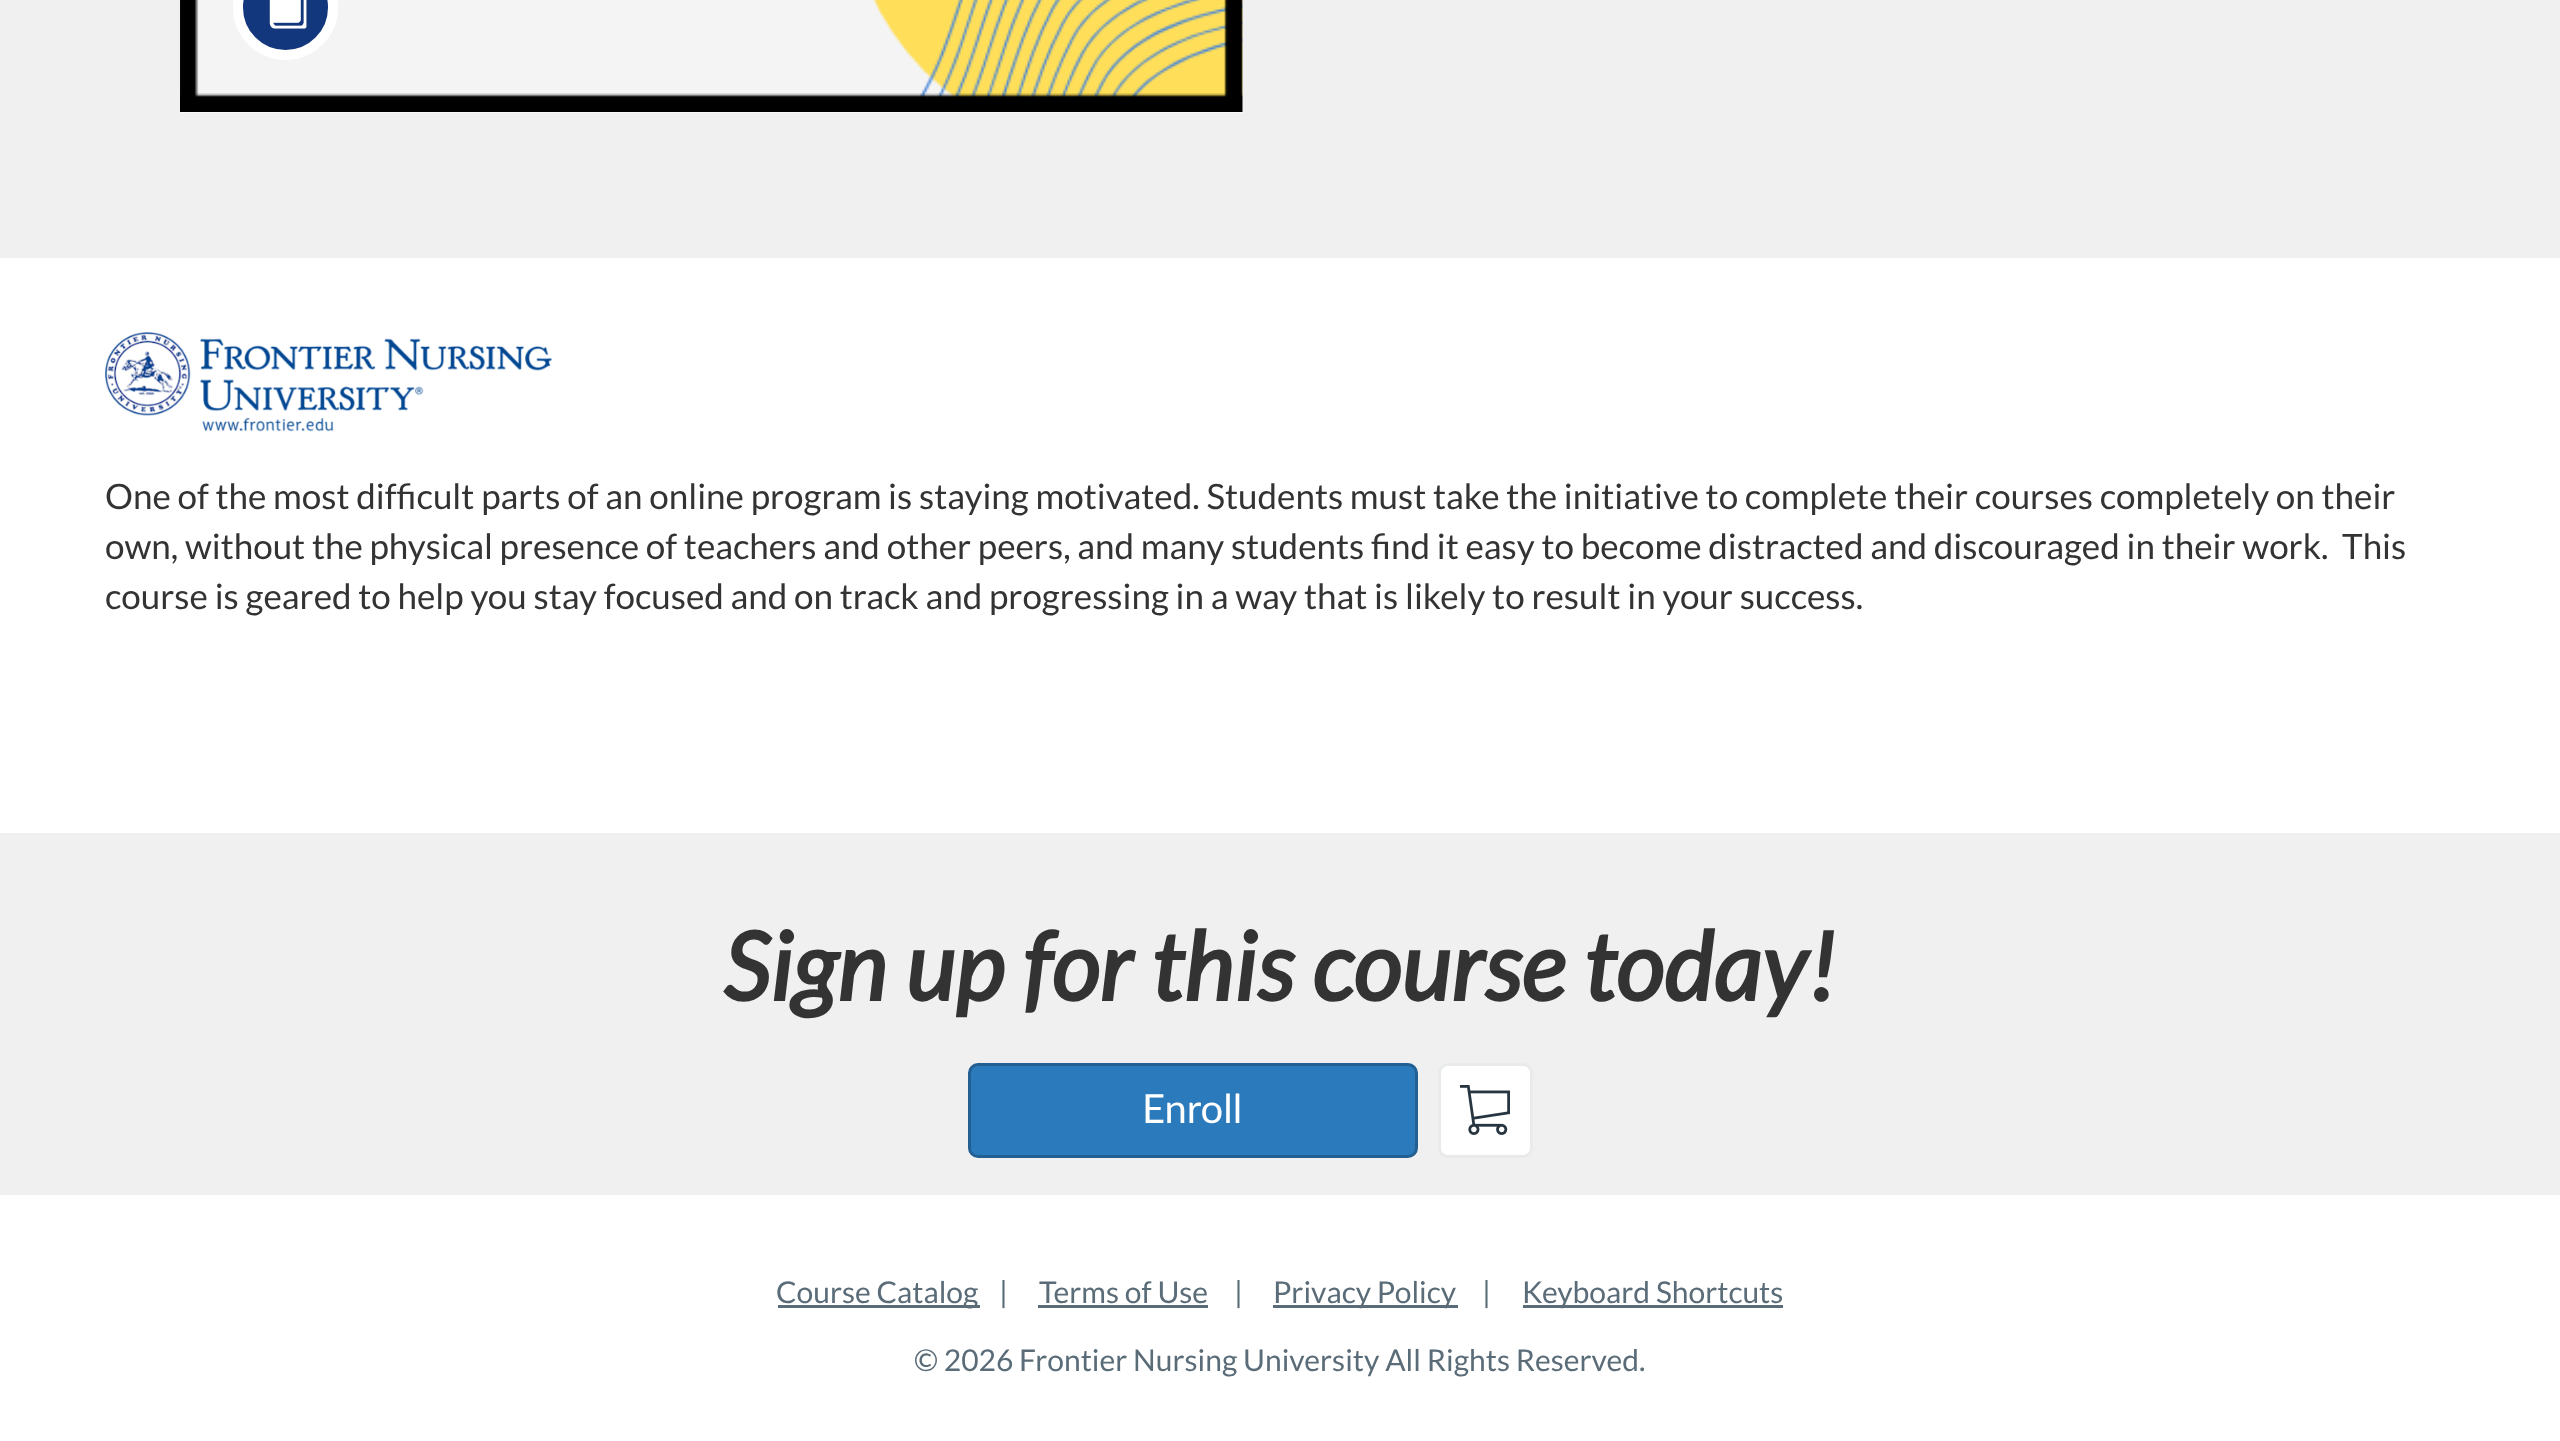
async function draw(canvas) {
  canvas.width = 2560
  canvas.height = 1441
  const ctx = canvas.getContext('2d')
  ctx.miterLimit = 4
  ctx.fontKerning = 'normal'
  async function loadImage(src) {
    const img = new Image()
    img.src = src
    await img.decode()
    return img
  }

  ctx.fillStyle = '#fff'
  ctx.fillRect(0, 0, 2560, 1441)
  ctx.fillStyle = '#f0f0f0'
  ctx.fillRect(0, 0, 2560, 258)
  ctx.fillStyle = '#f8f8f8'
  ctx.fillRect(180, 0, 1063, 113)
  ctx.drawImage(await loadImage('image1.png'), 180, 0, 1063, 112)
  ctx.fillStyle = '#13377c'
  ctx.beginPath()
  ctx.arc(285.5, 7.5, 47.5, 0, 2 * Math.PI)
  ctx.fill()
  ctx.strokeStyle = '#fff'
  ctx.lineWidth = 10
  ctx.stroke()
  ctx.drawImage(await loadImage('image0.png'), 269, 0, 38, 29)
  ctx.drawImage(await loadImage('image2.png'), 105, 332, 447, 100)
  ctx.font = '35px Lato'
  ctx.fillStyle = '#333'
  ctx.fillText('One of the most difficult parts of an online program is staying motivated. Students must take the initiative to complete their courses completely on their', 105, 509)
  ctx.fillText('own, without the physical presence of teachers and other peers, and many students find it easy to become distracted and discouraged in their work.  This', 105, 559)
  ctx.fillText('course is geared to help you stay focused and on track and progressing in a way that is likely to result in your success.', 105, 609)
  ctx.fillStyle = '#f0f0f0'
  ctx.fillRect(0, 833, 2560, 362)
  ctx.font = 'italic bold 95px Lato'
  ctx.fillStyle = '#333'
  ctx.fillText('Sign up for this course today!', 723, 1001)
  ctx.fillStyle = '#2b7abc'
  ctx.beginPath()
  ctx.roundRect(969.5, 1064.5, 447, 92, 8.5)
  ctx.fill()
  ctx.strokeStyle = '#225f92'
  ctx.lineWidth = 3
  ctx.stroke()
  ctx.font = '40px "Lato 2"'
  ctx.fillStyle = '#fff'
  ctx.fillText('Enroll', 1142, 1123)
  ctx.beginPath()
  ctx.roundRect(1439.5, 1064.5, 92, 92, 8.5)
  ctx.fill()
  ctx.strokeStyle = '#e8eaec'
  ctx.stroke()
  ctx.drawImage(await loadImage('image3.png'), 1460, 1085, 50, 50)
  ctx.fillStyle = '#5b6c79'
  ctx.fillRect(778, 1305, 202, 3)
  ctx.font = '30px Lato'
  ctx.fillText('Course Catalog', 776, 1303)
  ctx.fillText('|', 999, 1303)
  ctx.fillText('Terms of Use', 1039, 1303)
  ctx.fillRect(1038, 1305, 170, 3)
  ctx.fillText('|', 1234, 1303)
  ctx.fillRect(1273, 1305, 185, 3)
  ctx.fillText('Privacy Policy', 1273, 1303)
  ctx.fillText('|', 1482, 1303)
  ctx.fillRect(1523, 1305, 260, 3)
  ctx.fillText('Keyboard Shortcuts', 1522, 1303)
  ctx.fillText('© 2026 Frontier Nursing University All Rights Reserved.', 914, 1371)
}

draw(document.querySelector('canvas'))
